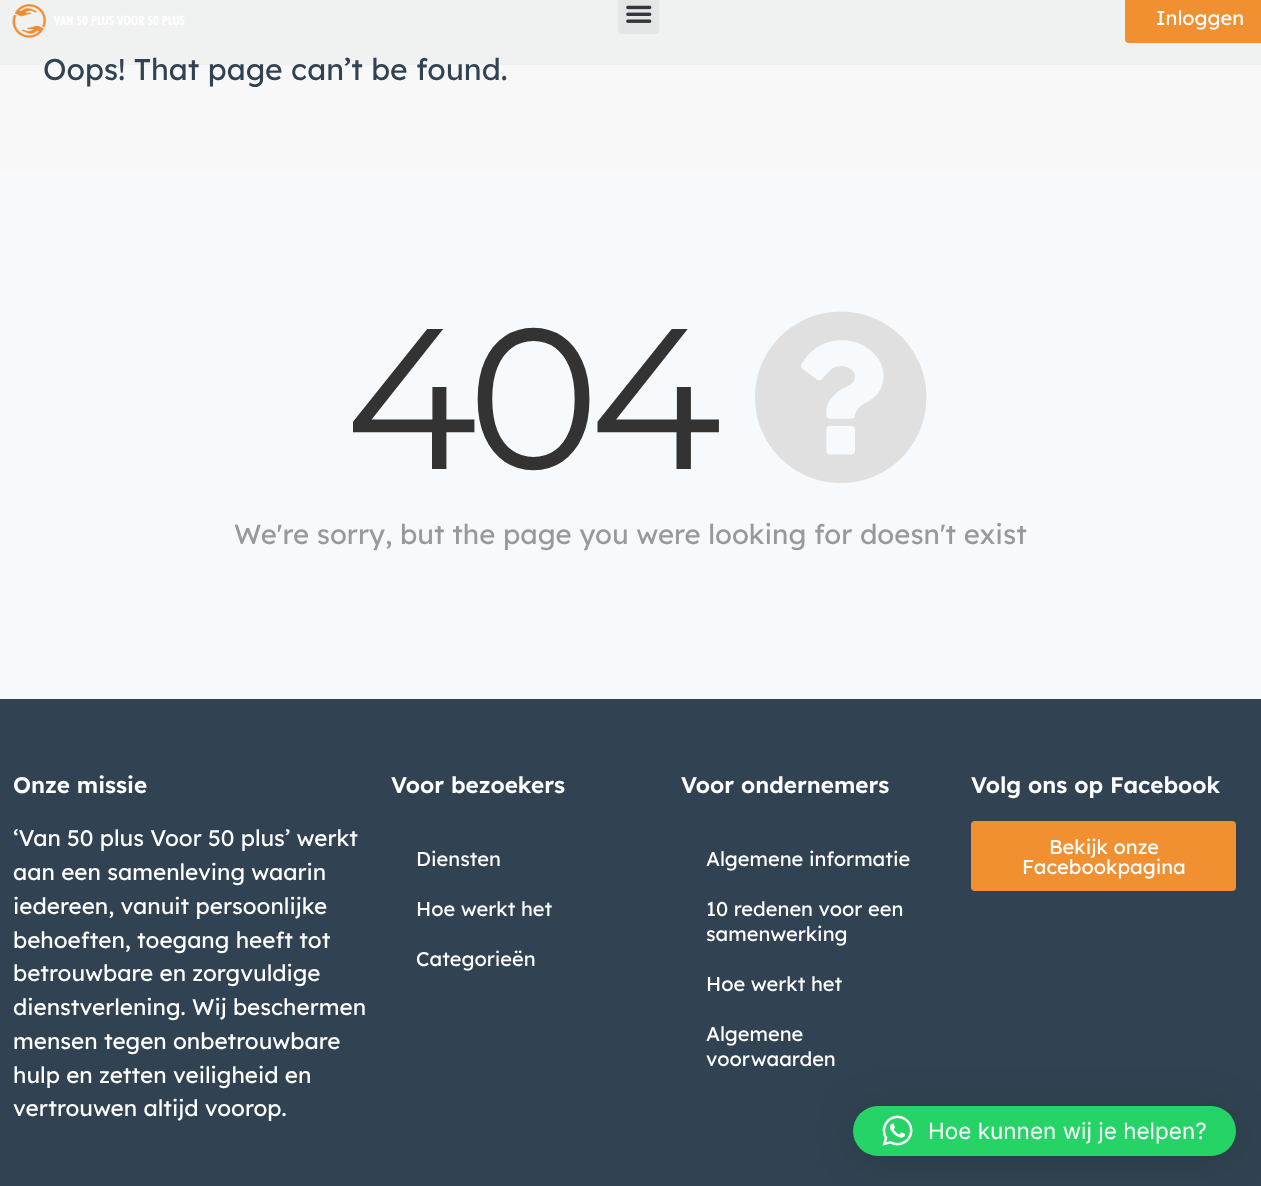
async function draw(canvas) {
  canvas.width = 1261
  canvas.height = 1186
  const ctx = canvas.getContext('2d')
  ctx.miterLimit = 4
  ctx.fontKerning = 'normal'
  async function loadImage(src) {
    const img = new Image()
    img.src = src
    await img.decode()
    return img
  }

  ctx.fillStyle = '#f7fafd'
  ctx.fillRect(0, 0, 1261, 1186)
  ctx.fillStyle = '#f8f8f8'
  ctx.fillRect(0, 0, 1261, 173)
  ctx.fillStyle = '#3143520a'
  ctx.fillRect(0, 0, 1261, 65)
  ctx.drawImage(await loadImage('image0.png'), 12, 4, 173, 34)
  ctx.fillStyle = '#e4e5e5'
  ctx.beginPath()
  ctx.roundRect(618, -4, 41, 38, 4)
  ctx.fill()
  ctx.drawImage(await loadImage('image1.png'), 626, 5, 26, 18)
  ctx.fillStyle = '#f09031'
  ctx.beginPath()
  ctx.roundRect(1125, -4, 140, 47, 4)
  ctx.fill()
  ctx.font = '20px Lexend Deca'
  ctx.fillStyle = '#fff'
  ctx.fillText('Inloggen', 1156, 25)
  ctx.font = '30px Lexend Deca'
  ctx.fillStyle = '#314352'
  ctx.fillText('Oops! That page can’t be found.', 43, 80)
  ctx.letterSpacing = '-10px'
  ctx.font = '200px Montserrat'
  ctx.fillStyle = '#333'
  ctx.fillText('404', 345, 469)
  ctx.drawImage(await loadImage('image2.png'), 755, 311, 172, 172)
  ctx.letterSpacing = '0px'
  ctx.font = '27.5px Lexend Deca'
  ctx.fillStyle = '#999'
  ctx.fillText('We\'re sorry, but the page you were looking for doesn\'t exist', 234, 544)
  ctx.fillStyle = '#314352'
  ctx.fillRect(0, 699, 1261, 487)
  ctx.font = '600 22.5px Lexend Deca'
  ctx.fillStyle = '#fff'
  ctx.fillText('Onze missie', 13, 793)
  ctx.font = '22.5px Lexend Deca'
  ctx.fillText('‘Van 50 plus Voor 50 plus’ werkt', 13, 846)
  ctx.fillText('aan een samenleving waarin', 13, 880)
  ctx.fillText('iedereen, vanuit persoonlijke', 13, 914)
  ctx.fillText('behoeften, toegang heeft tot', 13, 948)
  ctx.fillText('betrouwbare en zorgvuldige', 13, 981)
  ctx.fillText('dienstverlening. Wij beschermen', 13, 1015)
  ctx.fillText('mensen tegen onbetrouwbare', 13, 1049)
  ctx.fillText('hulp en zetten veiligheid en', 13, 1083)
  ctx.fillText('vertrouwen altijd voorop.', 13, 1116)
  ctx.font = '600 22.5px Lexend Deca'
  ctx.fillText('Voor bezoekers', 391, 793)
  ctx.font = '20px Lexend Deca'
  ctx.fillText('Diensten', 416, 866)
  ctx.fillText('Hoe werkt het', 416, 916)
  ctx.fillText('Categorieën', 416, 966)
  ctx.font = '600 22.5px Lexend Deca'
  ctx.fillText('Voor ondernemers', 681, 793)
  ctx.font = '20px Lexend Deca'
  ctx.fillText('Algemene informatie', 706, 866)
  ctx.fillText('10 redenen voor een', 706, 916)
  ctx.fillText('samenwerking', 706, 941)
  ctx.fillText('Hoe werkt het', 706, 991)
  ctx.fillText('Algemene', 706, 1041)
  ctx.fillText('voorwaarden', 706, 1066)
  ctx.font = '600 22.5px Lexend Deca'
  ctx.fillText('Volg ons op Facebook', 971, 793)
  ctx.fillStyle = '#f09031'
  ctx.beginPath()
  ctx.roundRect(971, 821, 265, 70, 4)
  ctx.fill()
  ctx.font = '20px Lexend Deca'
  ctx.fillStyle = '#fff'
  ctx.fillText('Bekijk onze', 1049, 854)
  ctx.fillText('Facebookpagina', 1022, 874)
  ctx.fillStyle = '#00000029'
  ctx.filter = 'blur(20px)'
  ctx.beginPath()
  ctx.roundRect(853, 1109, 383, 50, 25)
  ctx.fill()
  ctx.filter = 'none'
  ctx.fillStyle = '#25d366'
  ctx.beginPath()
  ctx.roundRect(853, 1106, 383, 50, 25)
  ctx.fill()
  ctx.drawImage(await loadImage('image3.png'), 882, 1115, 31, 31)
  ctx.font = '22.5px Inter'
  ctx.fillStyle = '#fff'
  ctx.fillText('Hoe kunnen wij je helpen?', 928, 1139)
}

draw(document.querySelector('canvas'))
